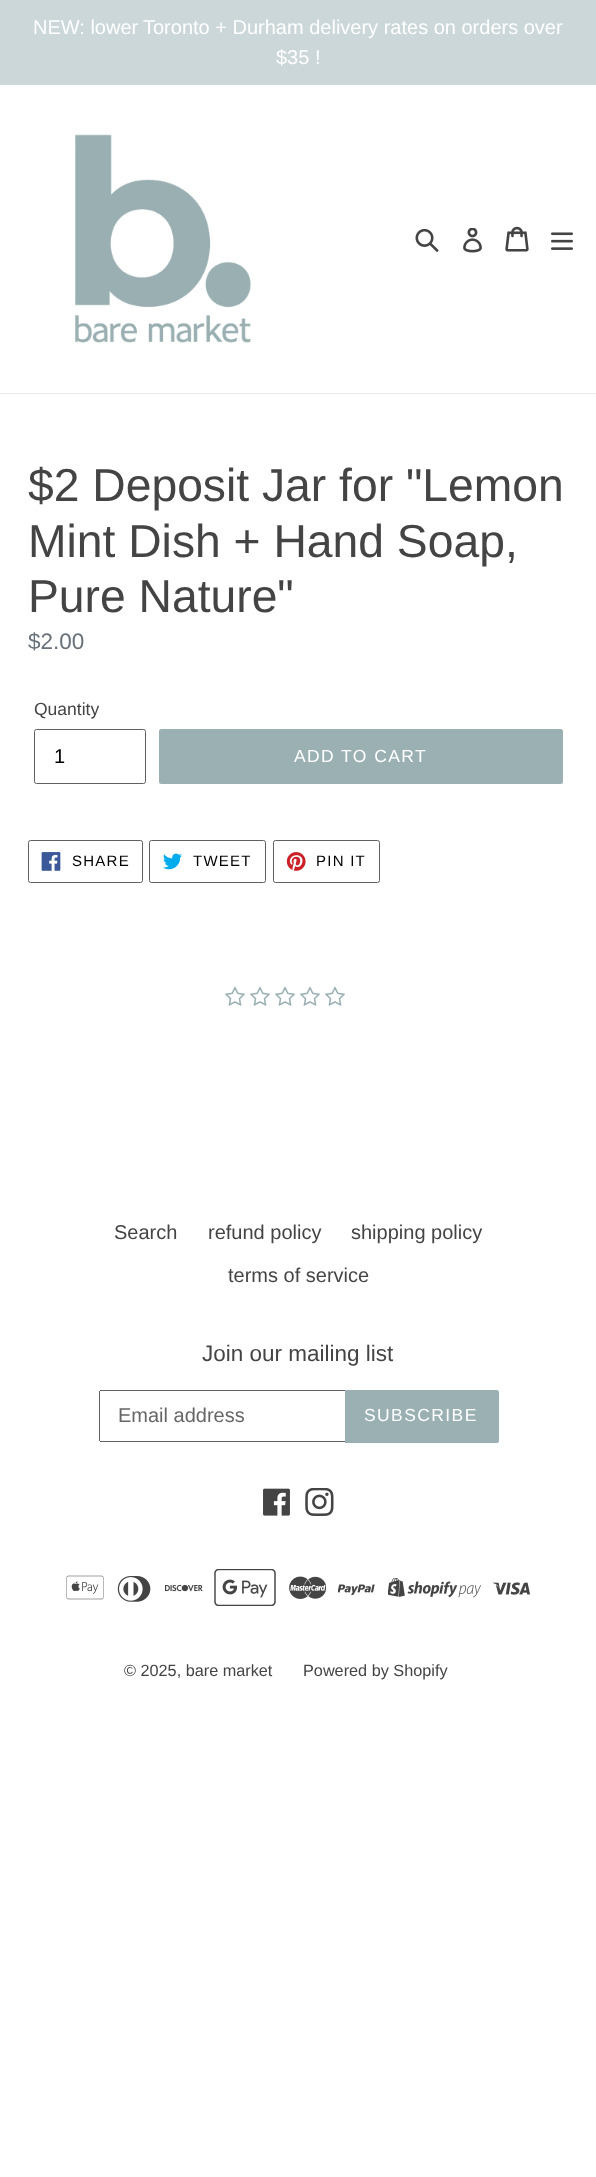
async function draw(canvas) {
  canvas.width = 596
  canvas.height = 2177
  const ctx = canvas.getContext('2d')
  ctx.miterLimit = 4
  ctx.fontKerning = 'normal'
  async function loadImage(src) {
    const img = new Image()
    img.src = src
    await img.decode()
    return img
  }

  ctx.fillStyle = '#fff'
  ctx.fillRect(0, 0, 596, 2177)
  ctx.fillStyle = '#ccd7d9'
  ctx.fillRect(0, 0, 596, 85)
  ctx.font = '20px Liberation Sans'
  ctx.fillStyle = '#fff'
  ctx.fillText('NEW: lower', 33, 34)
  ctx.fillText('Toronto + Durham delivery rates on orders over', 143, 34)
  ctx.fillText('$35 !', 276, 64)
  ctx.fillStyle = '#e8e9eb'
  ctx.fillRect(0, 393, 596, 1)
  ctx.drawImage(await loadImage('image0.png'), 75, 134, 176, 209)
  ctx.drawImage(await loadImage('image1.png'), 415, 228, 24, 24)
  ctx.drawImage(await loadImage('image2.png'), 463, 228, 19, 25)
  ctx.drawImage(await loadImage('image3.png'), 505, 226, 24, 26)
  ctx.drawImage(await loadImage('image4.png'), 551, 232, 22, 18)
  ctx.font = '46.25px Liberation Sans'
  ctx.fillStyle = '#444'
  ctx.fillText('$2 Deposit Jar for "Lemon', 28, 501)
  ctx.fillText('Mint Dish + Hand Soap,', 28, 557)
  ctx.fillText('Pure Nature"', 28, 612)
  ctx.font = '22.5px Liberation Sans'
  ctx.fillStyle = '#69727b'
  ctx.fillText('$2.00', 28, 649)
  ctx.font = '17.5px Liberation Sans'
  ctx.fillStyle = '#444'
  ctx.fillText('Quantity', 34, 715)
  ctx.beginPath()
  ctx.roundRect(34.5, 729.5, 111, 54, 2)
  ctx.strokeStyle = '#606060'
  ctx.stroke()
  ctx.font = '20px Liberation Sans'
  ctx.fillStyle = '#000'
  ctx.fillText('1', 54, 763)
  ctx.fillStyle = '#9bb0b3'
  ctx.beginPath()
  ctx.roundRect(159, 729, 404, 55, 2.5)
  ctx.fill()
  ctx.letterSpacing = '1.4px'
  ctx.font = '17.5px Liberation Sans'
  ctx.fillStyle = '#fff'
  ctx.fillText('ADD TO CART', 294, 762)
  ctx.beginPath()
  ctx.roundRect(28.5, 840.5, 114, 42, 2)
  ctx.stroke()
  ctx.drawImage(await loadImage('image5.png'), 41, 852, 20, 19)
  ctx.letterSpacing = '1.25px'
  ctx.font = '15px Liberation Sans'
  ctx.fillStyle = '#000'
  ctx.fillText('SHARE', 72, 866)
  ctx.beginPath()
  ctx.roundRect(149.5, 840.5, 116, 42, 2)
  ctx.stroke()
  ctx.drawImage(await loadImage('image6.png'), 163, 853, 19, 17)
  ctx.fillText('TWEET', 193, 866)
  ctx.beginPath()
  ctx.roundRect(273.5, 840.5, 106, 42, 2)
  ctx.stroke()
  ctx.drawImage(await loadImage('image7.png'), 286, 852, 20, 19)
  ctx.fillText('PIN IT', 316, 866)
  ctx.drawImage(await loadImage('image8.png'), 225, 986, 20, 20)
  ctx.drawImage(await loadImage('image8.png'), 250, 986, 20, 20)
  ctx.drawImage(await loadImage('image8.png'), 275, 986, 20, 20)
  ctx.drawImage(await loadImage('image8.png'), 300, 986, 20, 20)
  ctx.drawImage(await loadImage('image8.png'), 325, 986, 20, 20)
  ctx.letterSpacing = '0px'
  ctx.font = '20px Liberation Sans'
  ctx.fillStyle = '#444'
  ctx.fillText('Search', 114, 1239)
  ctx.fillText('refund policy', 208, 1239)
  ctx.fillText('shipping policy', 351, 1239)
  ctx.fillText('terms of service', 228, 1282)
  ctx.font = '22.5px Liberation Sans'
  ctx.fillText('Join our mailing list', 202, 1361)
  ctx.fillStyle = '#606060'
  ctx.fillRect(100, 1390, 245, 1)
  ctx.fillRect(100, 1441, 245, 1)
  ctx.fillRect(99, 1391, 1, 50)
  ctx.font = '20px Liberation Sans'
  ctx.fillStyle = '#666'
  ctx.fillText('Email address', 118, 1422)
  ctx.fillStyle = '#9bb0b3'
  ctx.beginPath()
  ctx.roundRect(345, 1390, 154, 53, [0, 2.5, 2.5, 0])
  ctx.fill()
  ctx.letterSpacing = '1.4px'
  ctx.font = '17.5px Liberation Sans'
  ctx.fillStyle = '#fff'
  ctx.fillText('SUBSCRIBE', 364, 1421)
  ctx.drawImage(await loadImage('image9.png'), 263, 1488, 27, 28)
  ctx.drawImage(await loadImage('image10.png'), 305, 1488, 29, 28)
  ctx.drawImage(await loadImage('image11.png'), 66, 1575, 38, 25)
  ctx.drawImage(await loadImage('image12.png'), 117, 1576, 34, 26)
  ctx.drawImage(await loadImage('image13.png'), 165, 1584, 38, 8)
  ctx.drawImage(await loadImage('image14.png'), 214, 1569, 62, 37)
  ctx.drawImage(await loadImage('image15.png'), 289, 1576, 37, 23)
  ctx.drawImage(await loadImage('image16.png'), 338, 1584, 37, 11)
  ctx.drawImage(await loadImage('image17.png'), 388, 1578, 93, 20)
  ctx.drawImage(await loadImage('image18.png'), 493, 1582, 37, 13)
  ctx.letterSpacing = '0px'
  ctx.font = '16.25px Liberation Sans'
  ctx.fillStyle = '#444'
  ctx.fillText('© 2025, bare market', 124, 1676)
  ctx.fillText('Powered by Shopify', 303, 1676)
}

draw(document.querySelector('canvas'))
